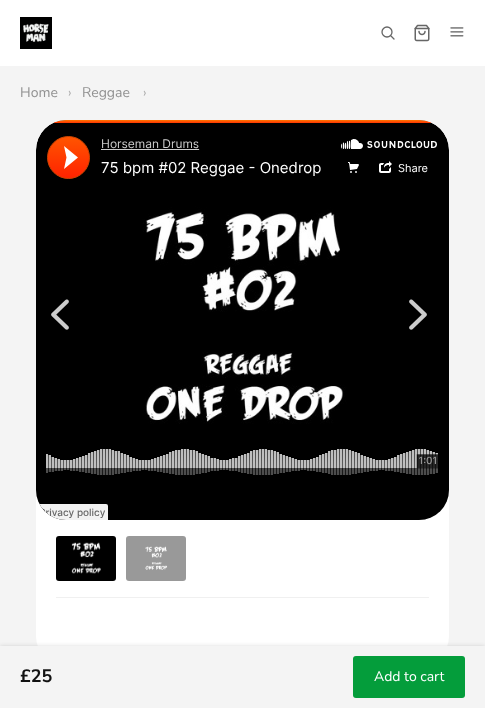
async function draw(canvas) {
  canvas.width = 485
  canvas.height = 708
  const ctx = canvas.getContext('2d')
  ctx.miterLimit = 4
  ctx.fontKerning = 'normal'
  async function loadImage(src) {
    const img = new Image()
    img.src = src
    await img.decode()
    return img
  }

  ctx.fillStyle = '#f4f4f4'
  ctx.fillRect(0, 0, 485, 708)
  ctx.fillStyle = '#fff'
  ctx.fillRect(0, 0, 485, 66)
  ctx.drawImage(await loadImage('image0.png'), 20, 17, 32, 32)
  ctx.beginPath()
  ctx.arc(387, 32, 5, 0, 2 * Math.PI)
  ctx.strokeStyle = '#666'
  ctx.lineWidth = 1.3
  ctx.stroke()
  ctx.beginPath()
  ctx.moveTo(394, 39)
  ctx.lineTo(391, 36)
  ctx.lineCap = 'round'
  ctx.lineJoin = 'round'
  ctx.stroke()
  ctx.drawImage(await loadImage('image1.png'), 414, 24, 16, 18)
  ctx.drawImage(await loadImage('image2.png'), 450, 27, 14, 10)
  ctx.font = '14px Nunito Sans'
  ctx.fillStyle = '#919191'
  ctx.fillText('Home', 20, 97)
  ctx.fillStyle = '#aeaeae'
  ctx.fillText('›', 68, 97)
  ctx.fillStyle = '#919191'
  ctx.fillText('Reggae', 82, 97)
  ctx.fillStyle = '#aeaeae'
  ctx.fillText('›', 143, 97)
  ctx.fillStyle = '#fff'
  ctx.beginPath()
  ctx.roundRect(36, 120, 413, 546, 30)
  ctx.fill()
  ctx.drawImage(await loadImage('image3.png'), 36, 120, 413, 400)
  ctx.drawImage(await loadImage('image4.png'), 51, 299, 18, 31)
  ctx.drawImage(await loadImage('image5.png'), 409, 299, 18, 31)
  ctx.drawImage(await loadImage('image6.png'), 56, 536, 60, 45)
  ctx.drawImage(await loadImage('image7.png'), 126, 536, 60, 45)
  ctx.fillStyle = '#f0f0f0'
  ctx.fillRect(56, 597, 373, 1)
  ctx.fillStyle = '#11111126'
  ctx.filter = 'blur(2px)'
  ctx.beginPath()
  ctx.rect(0, 646, 485, 62)
  ctx.fill()
  ctx.filter = 'none'
  ctx.fillStyle = '#f4f4f4'
  ctx.fillRect(0, 646, 485, 62)
  ctx.font = 'bold 18px Nunito Sans'
  ctx.fillStyle = '#111'
  ctx.fillText('£25', 20, 682)
  ctx.fillStyle = '#049d3b'
  ctx.beginPath()
  ctx.roundRect(353, 656, 112, 42, 3)
  ctx.fill()
  ctx.font = '14px Nunito Sans'
  ctx.fillStyle = '#fff'
  ctx.fillText('Add to cart', 374, 681)
}

draw(document.querySelector('canvas'))
